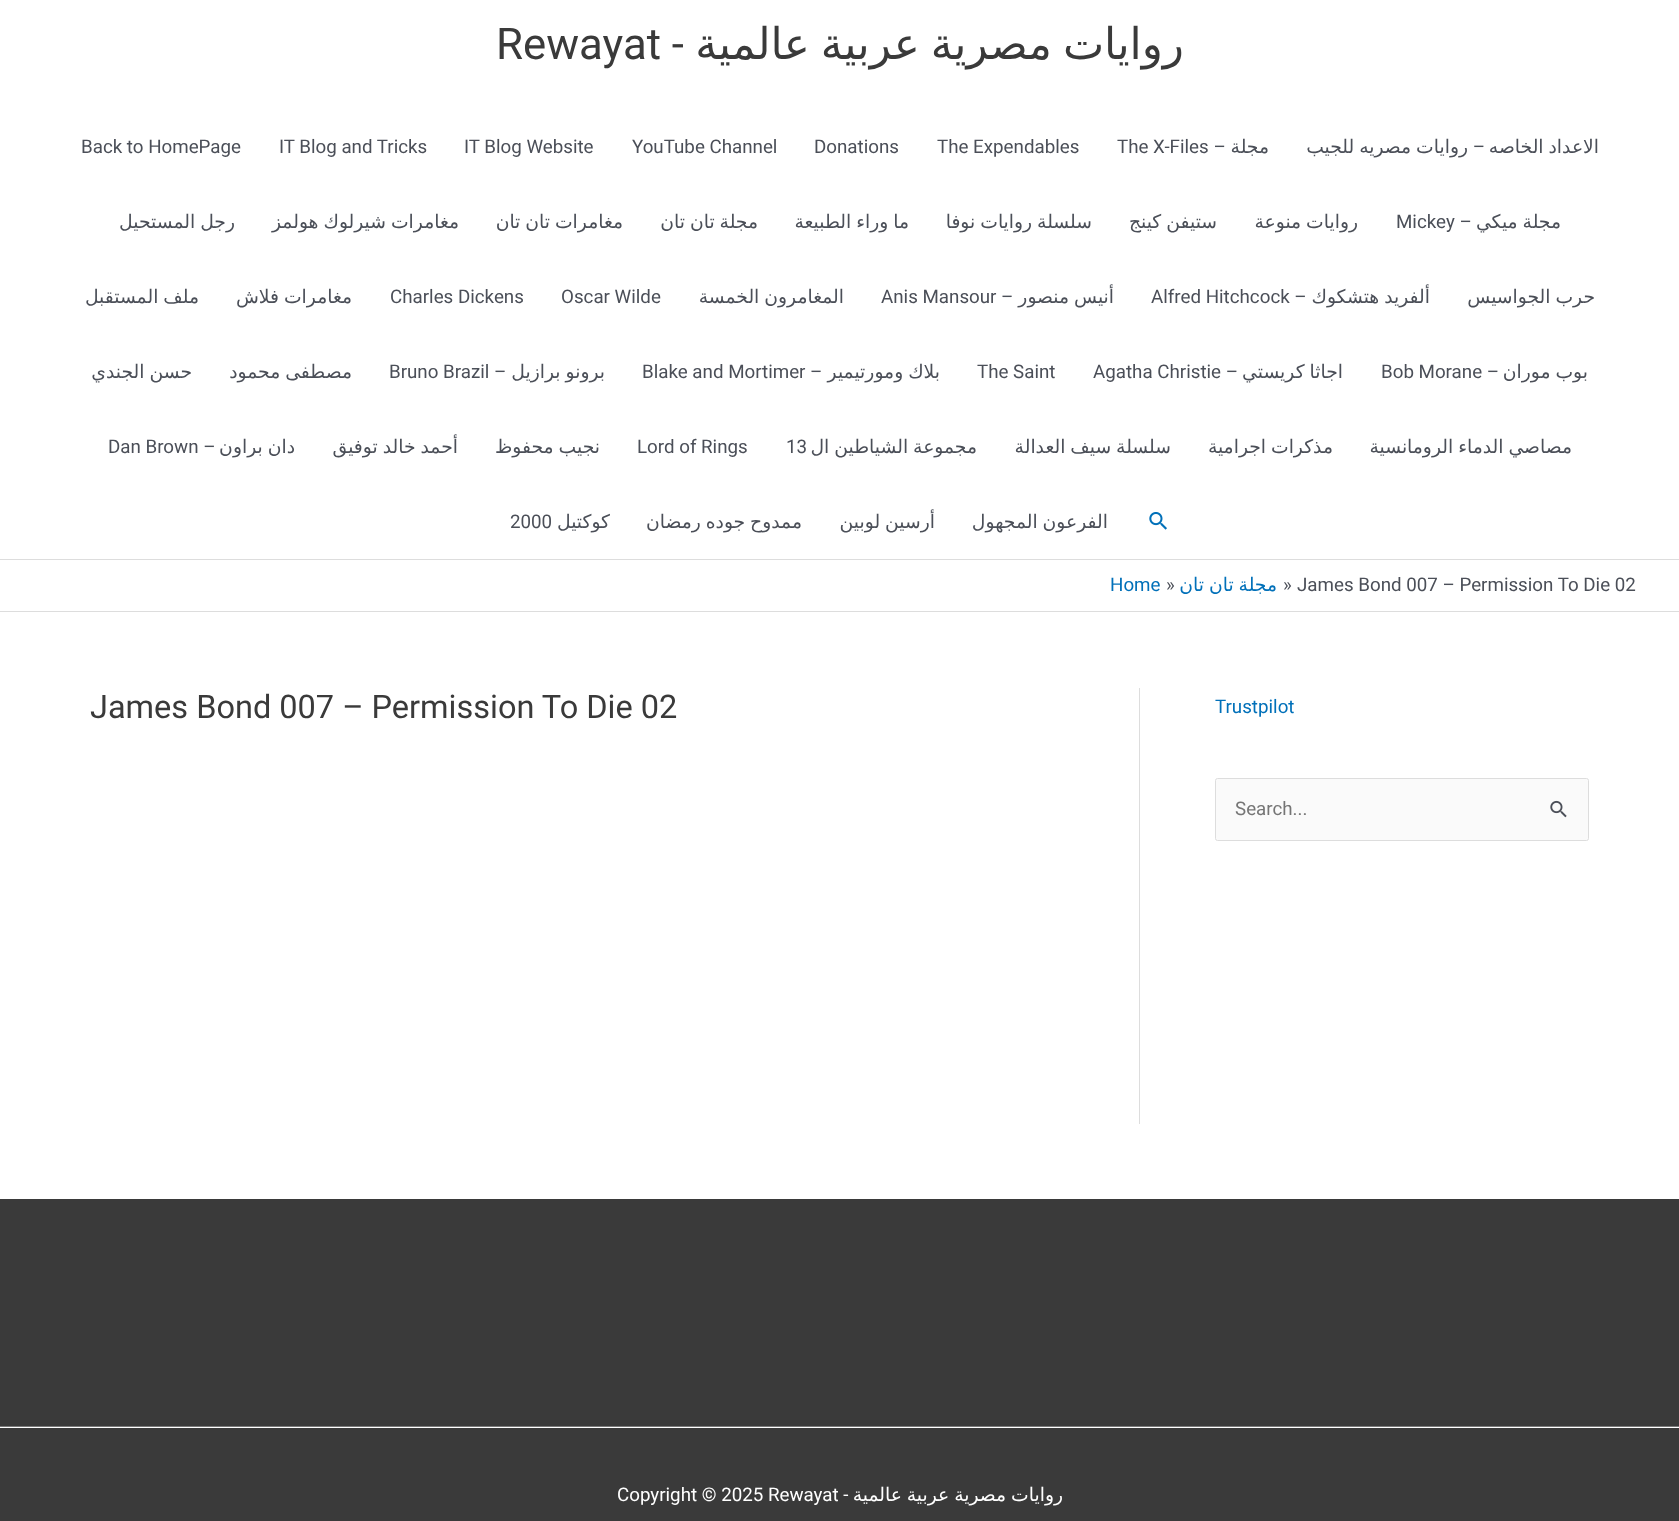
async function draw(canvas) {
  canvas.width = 1679
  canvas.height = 1521
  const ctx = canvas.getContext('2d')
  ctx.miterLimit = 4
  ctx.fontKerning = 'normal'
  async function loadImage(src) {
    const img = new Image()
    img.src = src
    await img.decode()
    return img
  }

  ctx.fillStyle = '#fff'
  ctx.fillRect(0, 0, 1679, 1521)
  ctx.fillStyle = '#ddd'
  ctx.fillRect(0, 559, 1679, 1)
  ctx.wordSpacing = '-3px'
  ctx.direction = 'rtl'
  ctx.font = '43.75px DejaVu Sans'
  ctx.fillStyle = '#3a3a3a'
  ctx.fillText('روايات مصرية عربية عالمية', 1184, 59)
  ctx.wordSpacing = '0px'
  ctx.direction = 'ltr'
  ctx.font = '43.75px Roboto'
  ctx.fillText('Rewayat -', 496, 59)
  ctx.wordSpacing = '-1px'
  ctx.direction = 'rtl'
  ctx.font = '18.75px DejaVu Sans'
  ctx.fillStyle = '#4b4f58'
  ctx.fillText('الاعداد الخاصه', 1599, 153)
  ctx.wordSpacing = '0px'
  ctx.font = '18.75px Roboto'
  ctx.fillText('–', 1485, 153)
  ctx.wordSpacing = '-1px'
  ctx.font = '18.75px DejaVu Sans'
  ctx.fillText('روايات مصريه للجيب', 1468, 153)
  ctx.wordSpacing = '0px'
  ctx.fillText('مجلة', 1269, 153)
  ctx.direction = 'ltr'
  ctx.font = '18.75px Roboto'
  ctx.fillText('The X-Files –', 1117, 153)
  ctx.fillText('The Expendables', 937, 153)
  ctx.fillText('Donations', 814, 153)
  ctx.fillText('YouTube Channel', 632, 153)
  ctx.fillText('IT Blog Website', 464, 153)
  ctx.fillText('IT Blog and Tricks', 279, 153)
  ctx.fillText('Back to HomePage', 81, 153)
  ctx.wordSpacing = '-1px'
  ctx.direction = 'rtl'
  ctx.font = '18.75px DejaVu Sans'
  ctx.fillText('مجلة ميكي', 1561, 228)
  ctx.wordSpacing = '0px'
  ctx.direction = 'ltr'
  ctx.font = '18.75px Roboto'
  ctx.fillText('Mickey –', 1396, 228)
  ctx.wordSpacing = '-1px'
  ctx.direction = 'rtl'
  ctx.font = '18.75px DejaVu Sans'
  ctx.fillText('روايات منوعة', 1358, 228)
  ctx.fillText('ستيفن كينج', 1217, 228)
  ctx.fillText('سلسلة روايات نوفا', 1092, 228)
  ctx.fillText('ما وراء الطبيعة', 909, 228)
  ctx.fillText('مجلة تان تان', 758, 228)
  ctx.fillText('مغامرات تان تان', 623, 228)
  ctx.fillText('مغامرات شيرلوك هولمز', 459, 228)
  ctx.fillText('رجل المستحيل', 235, 228)
  ctx.fillText('حرب الجواسيس', 1595, 303)
  ctx.fillText('ألفريد هتشكوك', 1430, 303)
  ctx.wordSpacing = '0px'
  ctx.direction = 'ltr'
  ctx.font = '18.75px Roboto'
  ctx.fillText('Alfred Hitchcock –', 1151, 303)
  ctx.wordSpacing = '-1px'
  ctx.direction = 'rtl'
  ctx.font = '18.75px DejaVu Sans'
  ctx.fillText('أنيس منصور', 1114, 303)
  ctx.wordSpacing = '0px'
  ctx.direction = 'ltr'
  ctx.font = '18.75px Roboto'
  ctx.fillText('Anis Mansour –', 881, 303)
  ctx.wordSpacing = '-1px'
  ctx.direction = 'rtl'
  ctx.font = '18.75px DejaVu Sans'
  ctx.fillText('المغامرون الخمسة', 844, 303)
  ctx.wordSpacing = '0px'
  ctx.direction = 'ltr'
  ctx.font = '18.75px Roboto'
  ctx.fillText('Oscar Wilde', 561, 303)
  ctx.fillText('Charles Dickens', 390, 303)
  ctx.wordSpacing = '-1px'
  ctx.direction = 'rtl'
  ctx.font = '18.75px DejaVu Sans'
  ctx.fillText('مغامرات فلاش', 352, 303)
  ctx.fillText('ملف المستقبل', 199, 303)
  ctx.fillText('بوب موران', 1588, 378)
  ctx.wordSpacing = '0px'
  ctx.direction = 'ltr'
  ctx.font = '18.75px Roboto'
  ctx.fillText('Bob Morane –', 1381, 378)
  ctx.wordSpacing = '-1px'
  ctx.direction = 'rtl'
  ctx.font = '18.75px DejaVu Sans'
  ctx.fillText('اجاثا كريستي', 1343, 378)
  ctx.wordSpacing = '0px'
  ctx.direction = 'ltr'
  ctx.font = '18.75px Roboto'
  ctx.fillText('Agatha Christie –', 1093, 378)
  ctx.fillText('The Saint', 977, 378)
  ctx.wordSpacing = '-1px'
  ctx.direction = 'rtl'
  ctx.font = '18.75px DejaVu Sans'
  ctx.fillText('بلاك ومورتيمير', 940, 378)
  ctx.wordSpacing = '0px'
  ctx.direction = 'ltr'
  ctx.font = '18.75px Roboto'
  ctx.fillText('Blake and Mortimer –', 642, 378)
  ctx.wordSpacing = '-1px'
  ctx.direction = 'rtl'
  ctx.font = '18.75px DejaVu Sans'
  ctx.fillText('برونو برازيل', 605, 378)
  ctx.wordSpacing = '0px'
  ctx.direction = 'ltr'
  ctx.font = '18.75px Roboto'
  ctx.fillText('Bruno Brazil –', 389, 378)
  ctx.wordSpacing = '-1px'
  ctx.direction = 'rtl'
  ctx.font = '18.75px DejaVu Sans'
  ctx.fillText('مصطفى محمود', 352, 378)
  ctx.fillText('حسن الجندي', 192, 378)
  ctx.fillText('مصاصي الدماء الرومانسية', 1572, 453)
  ctx.fillText('مذكرات اجرامية', 1333, 453)
  ctx.fillText('سلسلة سيف العدالة', 1171, 453)
  ctx.fillText('مجموعة الشياطين ال', 977, 453)
  ctx.wordSpacing = '0px'
  ctx.direction = 'ltr'
  ctx.font = '18.75px Roboto'
  ctx.fillText('13', 786, 453)
  ctx.fillText('Lord of Rings', 637, 453)
  ctx.wordSpacing = '-1px'
  ctx.direction = 'rtl'
  ctx.font = '18.75px DejaVu Sans'
  ctx.fillText('نجيب محفوظ', 600, 453)
  ctx.fillText('أحمد خالد توفيق', 458, 453)
  ctx.fillText('دان براون', 295, 453)
  ctx.wordSpacing = '0px'
  ctx.direction = 'ltr'
  ctx.font = '18.75px Roboto'
  ctx.fillText('Dan Brown –', 108, 453)
  ctx.drawImage(await loadImage('image0.png'), 1149, 512, 18, 18)
  ctx.wordSpacing = '-1px'
  ctx.direction = 'rtl'
  ctx.font = '18.75px DejaVu Sans'
  ctx.fillText('الفرعون المجهول', 1108, 528)
  ctx.fillText('أرسين لوبين', 935, 528)
  ctx.fillText('ممدوح جوده رمضان', 802, 528)
  ctx.wordSpacing = '0px'
  ctx.fillText('كوكتيل', 610, 528)
  ctx.direction = 'ltr'
  ctx.font = '18.75px Roboto'
  ctx.fillText('2000', 510, 528)
  ctx.fillStyle = '#ddd'
  ctx.fillRect(0, 611, 1679, 1)
  ctx.fillStyle = '#4b4f58'
  ctx.fillText('James Bond 007 – Permission To Die 02', 1297, 591)
  ctx.fillText('»', 1283, 591)
  ctx.wordSpacing = '-1px'
  ctx.direction = 'rtl'
  ctx.font = '18.75px DejaVu Sans'
  ctx.fillStyle = '#0170b9'
  ctx.fillText('مجلة تان تان', 1277, 591)
  ctx.wordSpacing = '0px'
  ctx.direction = 'ltr'
  ctx.font = '18.75px Roboto'
  ctx.fillStyle = '#4b4f58'
  ctx.fillText('»', 1166, 591)
  ctx.fillStyle = '#0170b9'
  ctx.fillText('Home', 1110, 591)
  ctx.fillText('Trustpilot', 1215, 713)
  ctx.fillStyle = '#fafafa'
  ctx.beginPath()
  ctx.roundRect(1215.5, 778.5, 373, 62, 2)
  ctx.fill()
  ctx.strokeStyle = '#ddd'
  ctx.stroke()
  ctx.drawImage(await loadImage('image1.png'), 1550, 800, 17, 18)
  ctx.fillStyle = '#757575'
  ctx.fillText('Search...', 1235, 815)
  ctx.fillStyle = '#ddd'
  ctx.fillRect(1139, 688, 1, 436)
  ctx.font = '32.5px Roboto'
  ctx.fillStyle = '#3a3a3a'
  ctx.fillText('James Bond 007 – Permission To Die 02', 90, 718)
  ctx.fillRect(0, 1199, 1679, 227)
  ctx.fillStyle = '#7a7a7a'
  ctx.fillRect(0, 1426, 1679, 1)
  ctx.fillStyle = '#3a3a3a'
  ctx.fillRect(0, 1428, 1679, 93)
  ctx.wordSpacing = '-1px'
  ctx.direction = 'rtl'
  ctx.font = '18.75px DejaVu Sans'
  ctx.fillStyle = '#fff'
  ctx.fillText('روايات مصرية عربية عالمية', 1063, 1501)
  ctx.wordSpacing = '0px'
  ctx.direction = 'ltr'
  ctx.font = '18.75px Roboto'
  ctx.fillText('Copyright © 2025 Rewayat -', 617, 1501)
}

draw(document.querySelector('canvas'))
